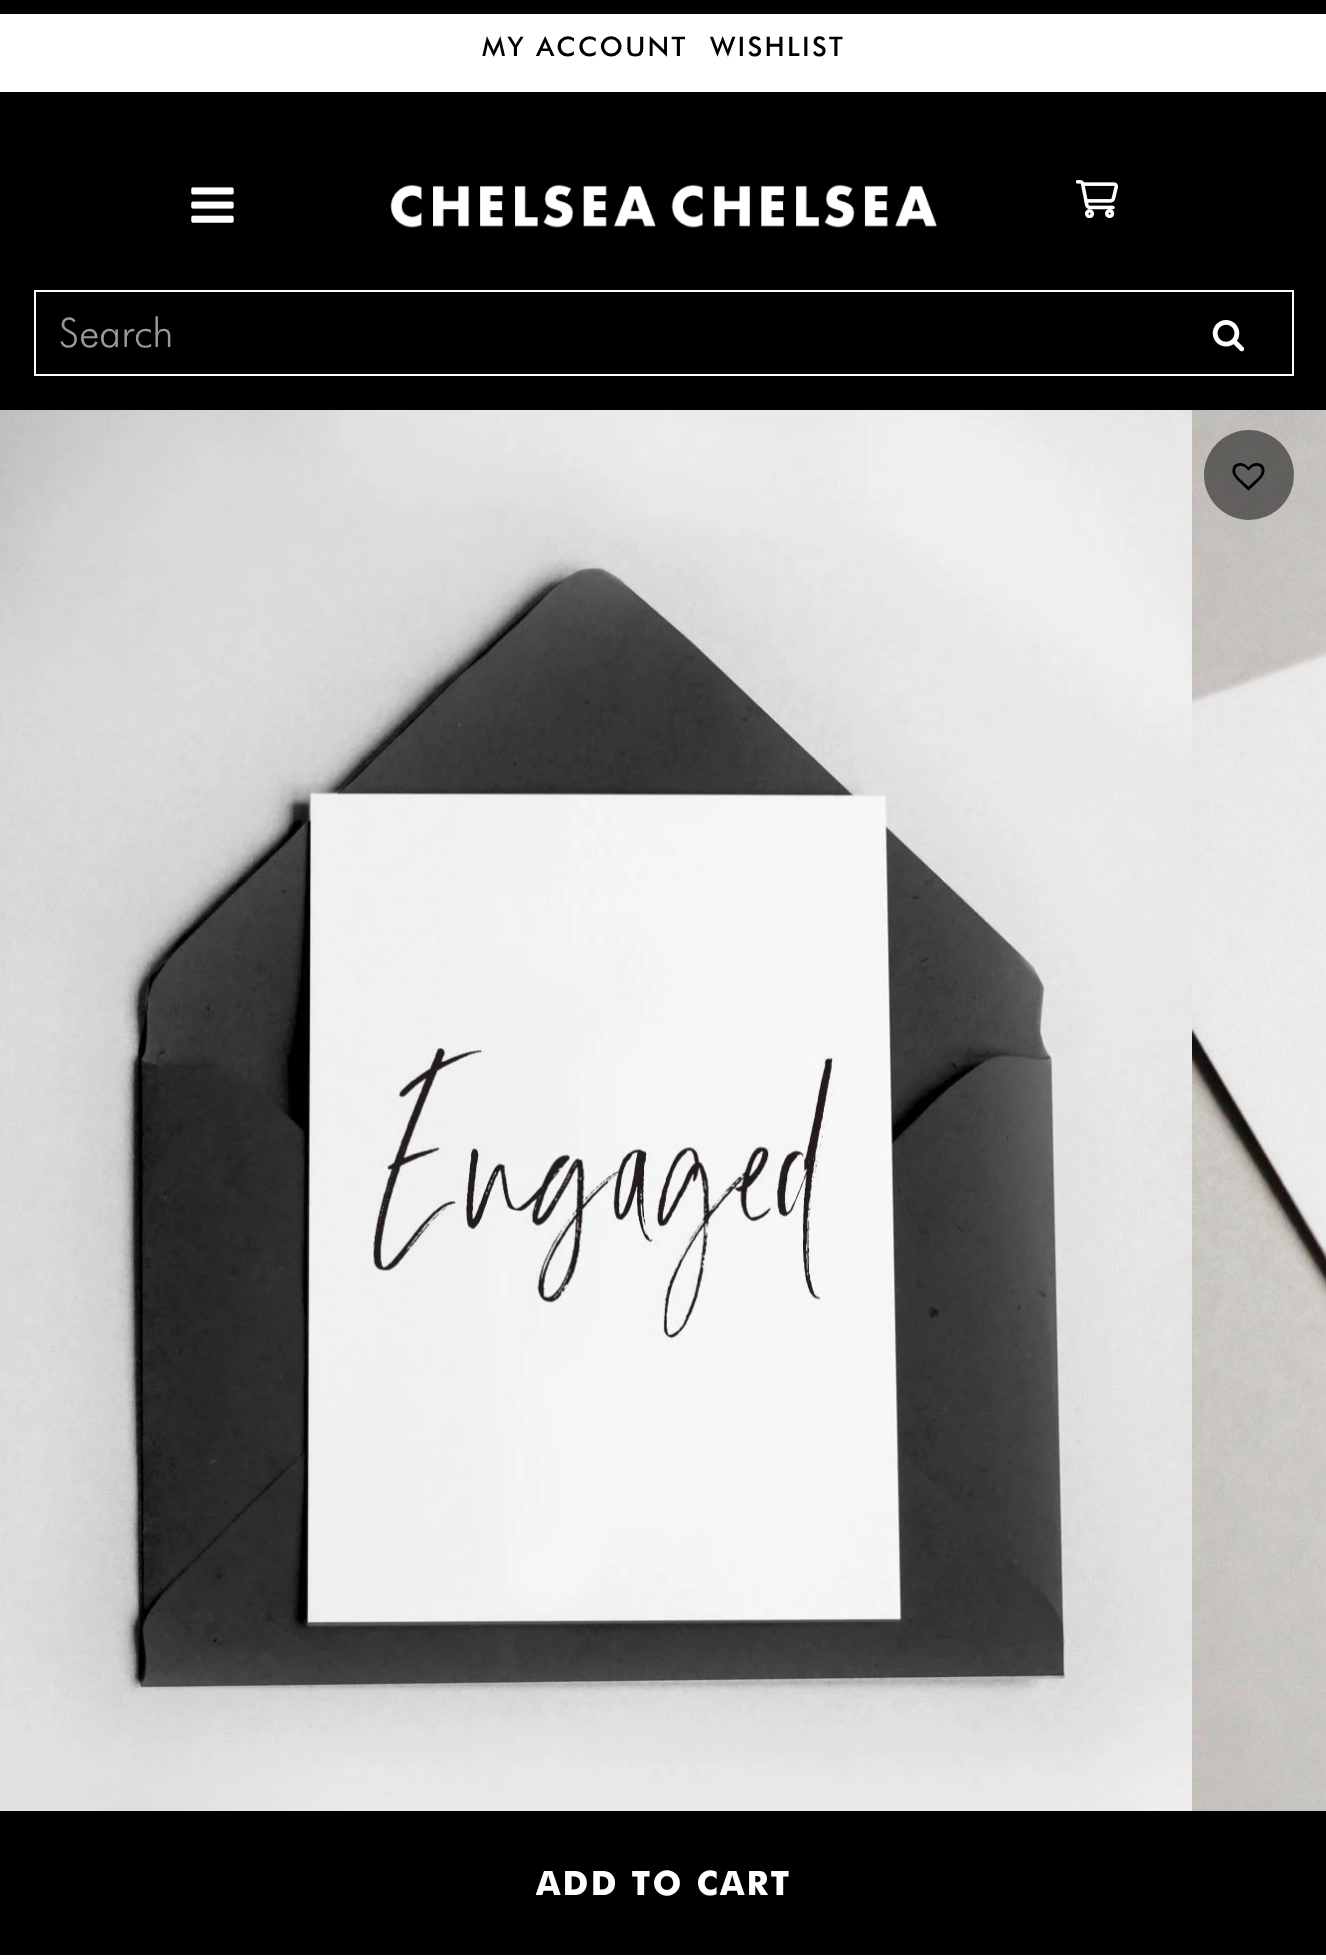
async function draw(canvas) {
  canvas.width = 1326
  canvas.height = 1960
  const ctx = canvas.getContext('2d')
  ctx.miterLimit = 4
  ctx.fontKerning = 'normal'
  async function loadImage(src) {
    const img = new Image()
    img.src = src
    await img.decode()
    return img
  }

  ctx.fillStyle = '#fff'
  ctx.fillRect(0, 0, 1326, 1960)
  ctx.fillStyle = '#000'
  ctx.fillRect(0, 0, 1326, 410)
  ctx.drawImage(await loadImage('image0.png'), 191, 187, 43, 36)
  ctx.drawImage(await loadImage('image1.png'), 390, 184, 548, 44)
  ctx.drawImage(await loadImage('image2.png'), 1076, 180, 42, 38)
  ctx.fillStyle = '#fff'
  ctx.fillRect(0, 14, 1326, 78)
  ctx.letterSpacing = '2.25px'
  ctx.font = '500 27px Futura'
  ctx.fillStyle = '#000'
  ctx.fillText('MY ACCOUNT', 482, 56)
  ctx.fillText('WISHLIST', 710, 56)
  ctx.strokeStyle = '#fff'
  ctx.lineWidth = 2
  ctx.strokeRect(35, 291, 1258, 84)
  ctx.letterSpacing = '0px'
  ctx.font = '300 40.5px Futura'
  ctx.fillStyle = '#999'
  ctx.fillText('Search', 59, 347)
  ctx.drawImage(await loadImage('image3.png'), 1212, 320, 33, 32)
  ctx.drawImage(await loadImage('image4.png'), 0, 410, 1192, 1401)
  ctx.drawImage(await loadImage('image5.png'), 1192, 410, 134, 1401)
  ctx.fillStyle = '#00000080'
  ctx.beginPath()
  ctx.arc(1249, 475, 45, 0, 2 * Math.PI)
  ctx.fill()
  ctx.drawImage(await loadImage('image6.png'), 1232, 463, 33, 28)
  ctx.fillStyle = '#000'
  ctx.fillRect(0, 1811, 1326, 144)
  ctx.letterSpacing = '2.25px'
  ctx.font = 'bold 33.75px Futura'
  ctx.fillStyle = '#fff'
  ctx.fillText('ADD TO CART', 536, 1895)
}

draw(document.querySelector('canvas'))
